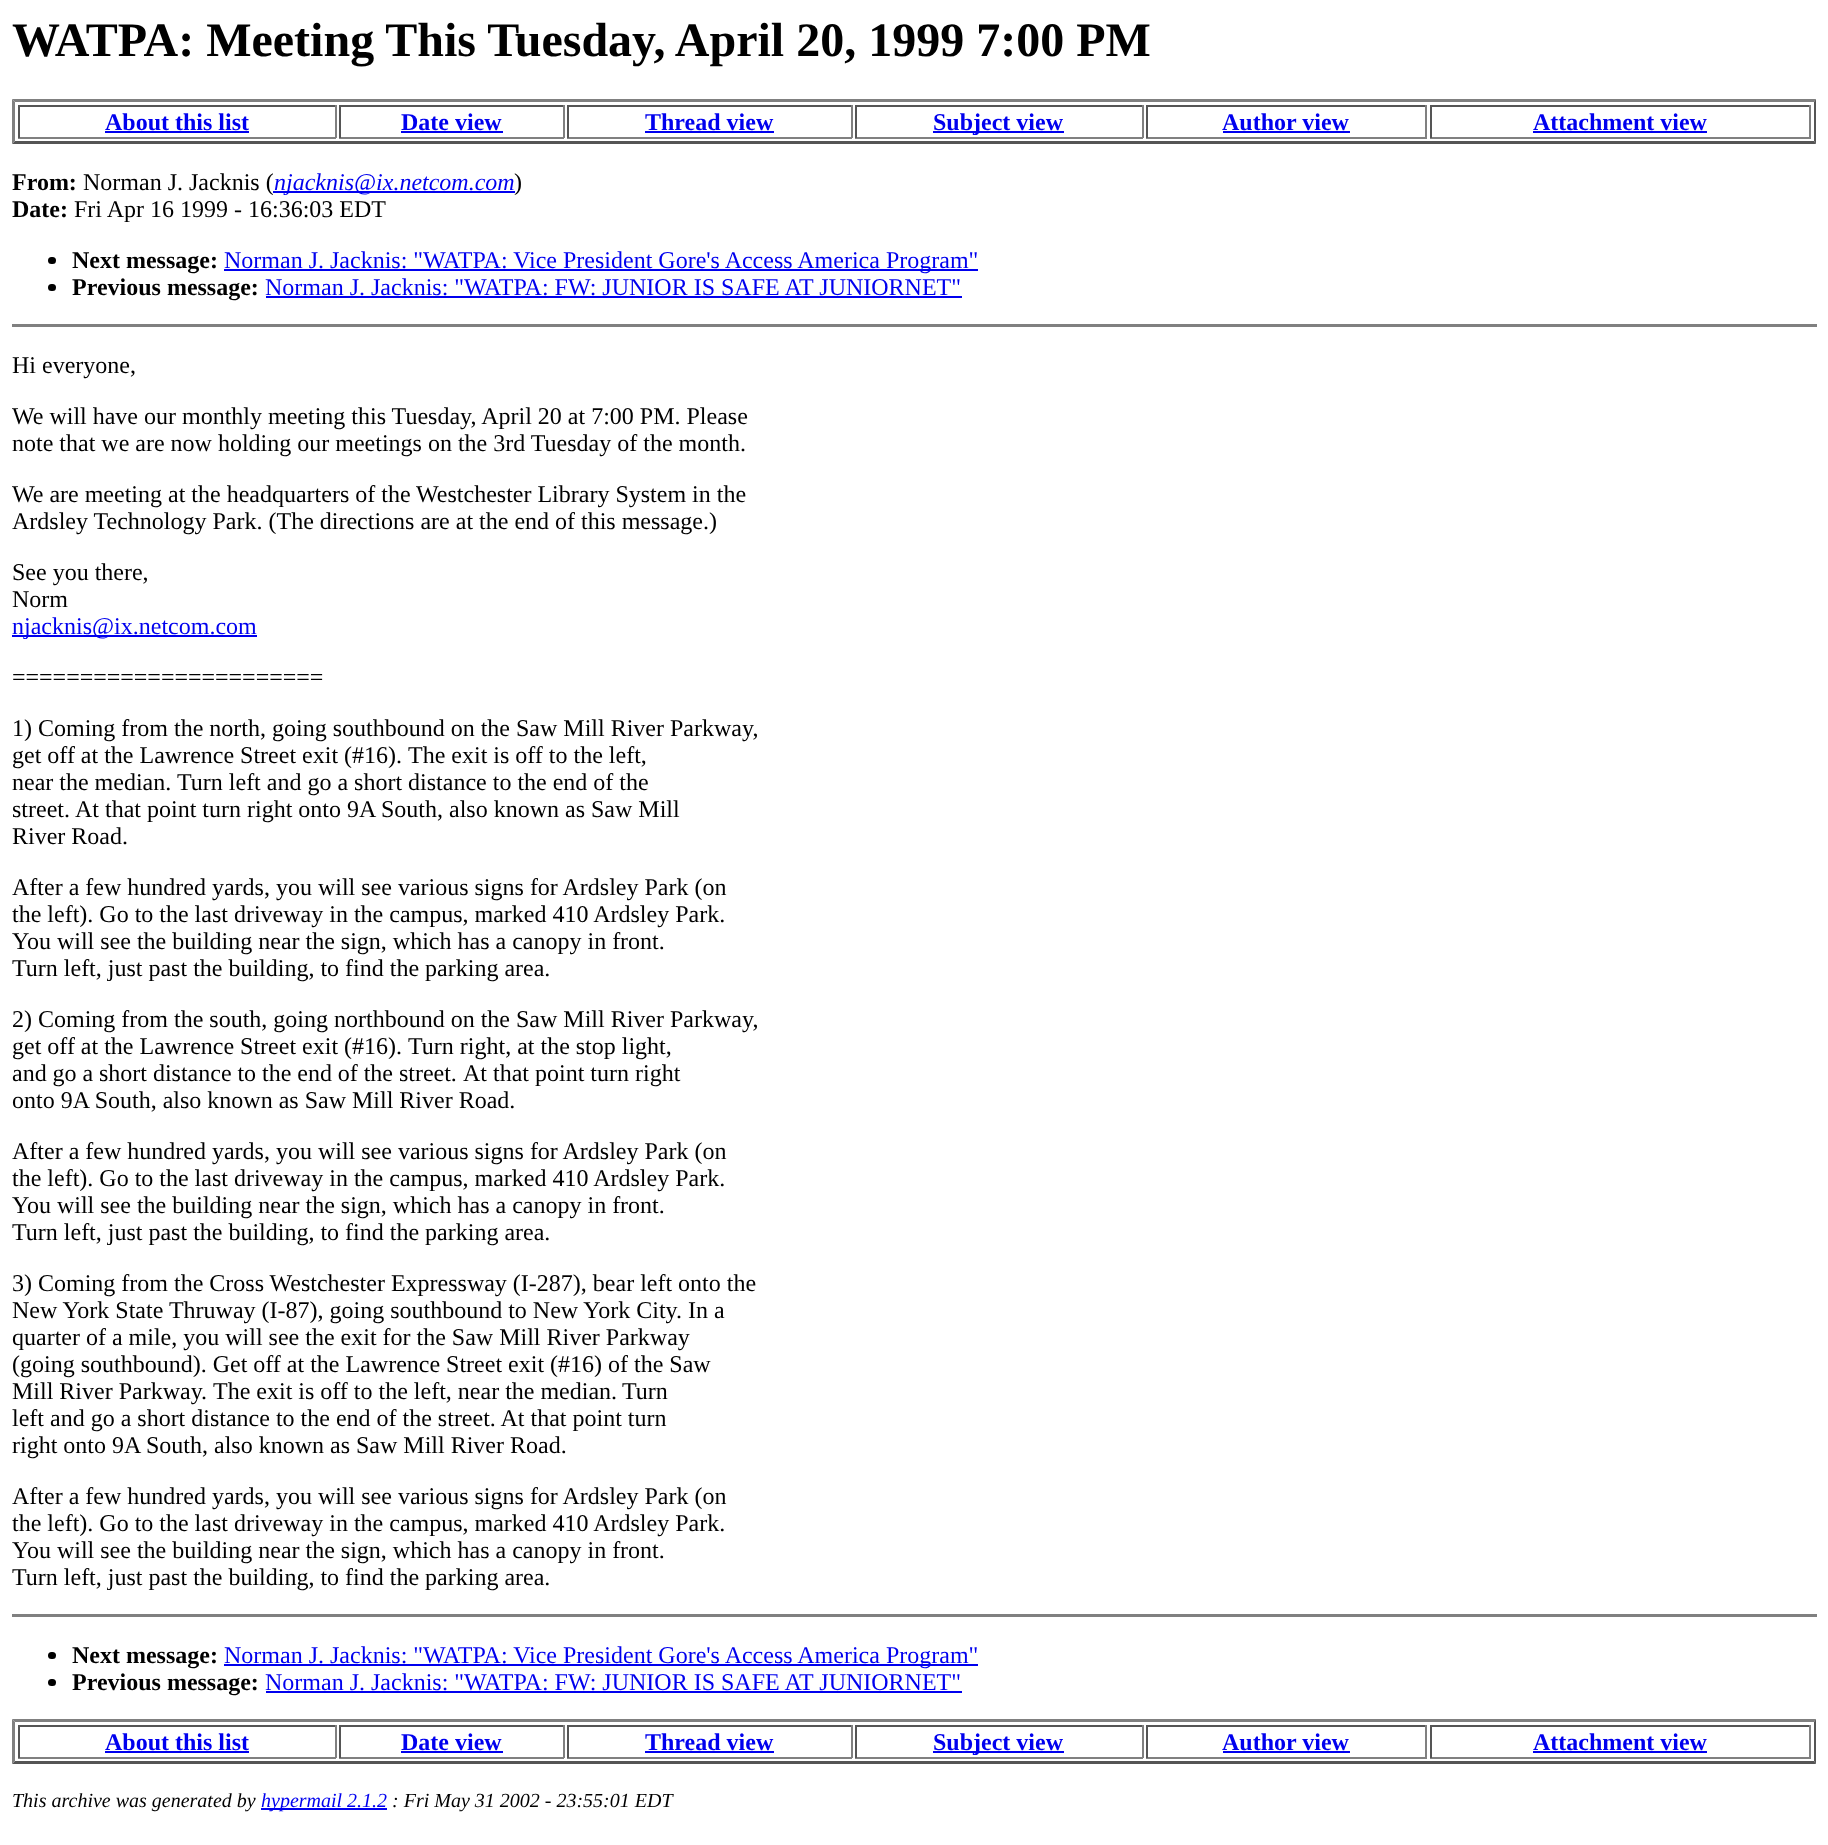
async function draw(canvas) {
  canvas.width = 1828
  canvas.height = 1845
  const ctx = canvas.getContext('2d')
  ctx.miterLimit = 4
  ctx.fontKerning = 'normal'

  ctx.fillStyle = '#fff'
  ctx.fillRect(0, 0, 1828, 1845)
  ctx.font = 'bold 48px Liberation Serif'
  ctx.fillStyle = '#000'
  ctx.fillText('WATPA: Meeting This Tuesday, April 20, 1999 7:00 PM', 12, 56)
  ctx.fillStyle = '#808080'
  ctx.beginPath()
  ctx.moveTo(12, 99)
  ctx.lineTo(1816, 99)
  ctx.lineTo(1814, 102)
  ctx.lineTo(15, 102)
  ctx.closePath()
  ctx.fill()
  ctx.fillStyle = '#555'
  ctx.beginPath()
  ctx.moveTo(1816, 99)
  ctx.lineTo(1816, 144)
  ctx.lineTo(1814, 141)
  ctx.lineTo(1814, 102)
  ctx.closePath()
  ctx.fill()
  ctx.beginPath()
  ctx.moveTo(1816, 144)
  ctx.lineTo(12, 144)
  ctx.lineTo(15, 141)
  ctx.lineTo(1814, 141)
  ctx.closePath()
  ctx.fill()
  ctx.fillStyle = '#808080'
  ctx.beginPath()
  ctx.moveTo(12, 144)
  ctx.lineTo(12, 99)
  ctx.lineTo(15, 102)
  ctx.lineTo(15, 141)
  ctx.closePath()
  ctx.fill()
  ctx.fillStyle = '#555'
  ctx.fillRect(18, 105, 318, 2)
  ctx.fillStyle = '#808080'
  ctx.fillRect(335, 105, 2, 33)
  ctx.fillRect(18, 137, 318, 2)
  ctx.fillStyle = '#555'
  ctx.fillRect(18, 105, 2, 33)
  ctx.font = 'bold 24px Liberation Serif'
  ctx.fillStyle = '#00e'
  ctx.fillText('About this list', 105, 130)
  ctx.fillRect(105, 131, 144, 2)
  ctx.fillStyle = '#555'
  ctx.fillRect(339, 105, 225, 2)
  ctx.fillStyle = '#808080'
  ctx.fillRect(563, 105, 2, 33)
  ctx.fillRect(339, 137, 225, 2)
  ctx.fillStyle = '#555'
  ctx.fillRect(339, 105, 2, 33)
  ctx.fillStyle = '#00e'
  ctx.fillText('Date view', 401, 130)
  ctx.fillRect(401, 131, 102, 2)
  ctx.fillStyle = '#555'
  ctx.fillRect(567, 105, 285, 2)
  ctx.fillStyle = '#808080'
  ctx.fillRect(851, 105, 2, 33)
  ctx.fillRect(567, 137, 285, 2)
  ctx.fillStyle = '#555'
  ctx.fillRect(567, 105, 2, 33)
  ctx.fillStyle = '#00e'
  ctx.fillText('Thread view', 645, 130)
  ctx.fillRect(645, 131, 129, 2)
  ctx.fillStyle = '#555'
  ctx.fillRect(855, 105, 288, 2)
  ctx.fillStyle = '#808080'
  ctx.fillRect(1142, 105, 2, 33)
  ctx.fillRect(855, 137, 288, 2)
  ctx.fillStyle = '#555'
  ctx.fillRect(855, 105, 2, 33)
  ctx.fillStyle = '#00e'
  ctx.fillRect(933, 131, 131, 2)
  ctx.fillText('Subject view', 933, 130)
  ctx.fillStyle = '#555'
  ctx.fillRect(1146, 105, 281, 2)
  ctx.fillStyle = '#808080'
  ctx.fillRect(1425, 105, 2, 33)
  ctx.fillRect(1146, 137, 281, 2)
  ctx.fillStyle = '#555'
  ctx.fillRect(1146, 105, 2, 33)
  ctx.fillStyle = '#00e'
  ctx.fillText('Author view', 1222, 130)
  ctx.fillRect(1223, 131, 127, 2)
  ctx.fillStyle = '#555'
  ctx.fillRect(1430, 105, 381, 2)
  ctx.fillStyle = '#808080'
  ctx.fillRect(1809, 105, 2, 33)
  ctx.fillRect(1430, 137, 381, 2)
  ctx.fillStyle = '#555'
  ctx.fillRect(1430, 105, 2, 33)
  ctx.fillStyle = '#00e'
  ctx.fillText('Attachment view', 1533, 130)
  ctx.fillRect(1533, 131, 174, 2)
  ctx.fillStyle = '#000'
  ctx.fillText('From:', 12, 190)
  ctx.font = '24px Liberation Serif'
  ctx.fillText('Norman J. Jacknis (', 83, 190)
  ctx.fillStyle = '#00e'
  ctx.fillRect(273, 191, 242, 2)
  ctx.font = 'italic 24px Liberation Serif'
  ctx.fillText('njacknis@ix.netcom.com', 274, 190)
  ctx.font = '24px Liberation Serif'
  ctx.fillStyle = '#000'
  ctx.fillText(')', 514, 190)
  ctx.font = 'bold 24px Liberation Serif'
  ctx.fillText('Date:', 12, 217)
  ctx.font = '24px Liberation Serif'
  ctx.fillText('Fri Apr 16 1999 - 16:36:03 EDT', 74, 217)
  ctx.beginPath()
  ctx.roundRect(48, 257, 8, 7, 3.5)
  ctx.fill()
  ctx.font = 'bold 24px Liberation Serif'
  ctx.fillText('Next message:', 72, 268)
  ctx.fillStyle = '#00e'
  ctx.fillRect(224, 269, 754, 2)
  ctx.font = '24px Liberation Serif'
  ctx.fillText('Norman J. Jacknis: "WATPA: Vice President Gore\'s Access America Program"', 224, 268)
  ctx.fillStyle = '#000'
  ctx.beginPath()
  ctx.roundRect(48, 284, 8, 7, 3.5)
  ctx.fill()
  ctx.font = 'bold 24px Liberation Serif'
  ctx.fillText('Previous message:', 72, 295)
  ctx.font = '24px Liberation Serif'
  ctx.fillStyle = '#00e'
  ctx.fillText('Norman J. Jacknis: "WATPA: FW: JUNIOR IS SAFE AT JUNIORNET"', 265, 295)
  ctx.fillRect(266, 296, 696, 2)
  ctx.fillStyle = '#808080'
  ctx.fillRect(12, 324, 1805, 3)
  ctx.fillStyle = '#000'
  ctx.fillText('Hi everyone,', 12, 373)
  ctx.fillText('We will have our monthly meeting this Tuesday, April 20 at 7:00 PM. Please', 12, 424)
  ctx.fillText('note that we are now holding our meetings on the 3rd Tuesday of the month.', 12, 451)
  ctx.fillText('We are meeting at the headquarters of the Westchester Library System in the', 12, 502)
  ctx.fillText('Ardsley Technology Park. (The directions are at the end of this message.)', 12, 529)
  ctx.fillText('See you there,', 12, 580)
  ctx.fillText('Norm', 12, 607)
  ctx.fillStyle = '#00e'
  ctx.fillRect(12, 635, 245, 2)
  ctx.fillText('njacknis@ix.netcom.com', 12, 634)
  ctx.fillStyle = '#000'
  ctx.fillText('=======================', 12, 685)
  ctx.fillText('1) Coming from the north, going southbound on the Saw Mill River Parkway,', 12, 736)
  ctx.fillText('get off at the Lawrence Street exit (#16).', 12, 763)
  ctx.fillText('The exit is off to the left,', 408, 763)
  ctx.fillText('near the median.', 12, 790)
  ctx.fillText('Turn left and go a short distance to the end of the', 177, 790)
  ctx.fillText('street.', 12, 817)
  ctx.fillText('At that point turn right onto 9A South, also known as Saw Mill', 75, 817)
  ctx.fillText('River Road.', 12, 844)
  ctx.fillText('After a few hundred yards, you will see various signs for Ardsley Park (on', 12, 895)
  ctx.fillText('the left). Go to the last driveway in the campus, marked 410 Ardsley Park.', 12, 922)
  ctx.fillText('You will see the building near the sign, which has a canopy in front.', 12, 949)
  ctx.fillText('Turn left, just past the building, to find the parking area.', 12, 976)
  ctx.fillText('2) Coming from the south, going northbound on the Saw Mill River Parkway,', 12, 1027)
  ctx.fillText('get off at the Lawrence Street exit (#16).', 12, 1054)
  ctx.fillText('Turn right, at the stop light,', 408, 1054)
  ctx.wordSpacing = '-0.1px'
  ctx.fillText('and go a short distance to the end of the street.', 12, 1081)
  ctx.wordSpacing = '0px'
  ctx.fillText('At that point turn right', 463, 1081)
  ctx.fillText('onto 9A South, also known as Saw Mill River Road.', 12, 1108)
  ctx.fillText('After a few hundred yards, you will see various signs for Ardsley Park (on', 12, 1159)
  ctx.fillText('the left). Go to the last driveway in the campus, marked 410 Ardsley Park.', 12, 1186)
  ctx.fillText('You will see the building near the sign, which has a canopy in front.', 12, 1213)
  ctx.fillText('Turn left, just past the building, to find the parking area.', 12, 1240)
  ctx.fillText('3) Coming from the Cross Westchester Expressway (I-287), bear left onto the', 12, 1291)
  ctx.fillText('New York State Thruway (I-87), going southbound to New York City. In a', 12, 1318)
  ctx.fillText('quarter of a mile, you will see the exit for the Saw Mill River Parkway', 12, 1345)
  ctx.fillText('(going southbound). Get off at the Lawrence Street exit (#16) of the Saw', 12, 1372)
  ctx.fillText('Mill River Parkway.', 12, 1399)
  ctx.fillText('The exit is off to the left, near the median.', 213, 1399)
  ctx.fillText('Turn', 622, 1399)
  ctx.fillText('left and go a short distance to the end of the street. At that point turn', 12, 1426)
  ctx.fillText('right onto 9A South, also known as Saw Mill River Road.', 12, 1453)
  ctx.fillText('After a few hundred yards, you will see various signs for Ardsley Park (on', 12, 1504)
  ctx.fillText('the left). Go to the last driveway in the campus, marked 410 Ardsley Park.', 12, 1531)
  ctx.fillText('You will see the building near the sign, which has a canopy in front.', 12, 1558)
  ctx.fillText('Turn left, just past the building, to find the parking area.', 12, 1585)
  ctx.fillStyle = '#808080'
  ctx.fillRect(12, 1614, 1805, 3)
  ctx.fillStyle = '#000'
  ctx.beginPath()
  ctx.roundRect(48, 1652, 8, 7, 3.5)
  ctx.fill()
  ctx.font = 'bold 24px Liberation Serif'
  ctx.fillText('Next message:', 72, 1663)
  ctx.fillStyle = '#00e'
  ctx.fillRect(224, 1664, 754, 2)
  ctx.font = '24px Liberation Serif'
  ctx.fillText('Norman J. Jacknis: "WATPA: Vice President Gore\'s Access America Program"', 224, 1663)
  ctx.fillStyle = '#000'
  ctx.beginPath()
  ctx.roundRect(48, 1679, 8, 7, 3.5)
  ctx.fill()
  ctx.font = 'bold 24px Liberation Serif'
  ctx.fillText('Previous message:', 72, 1690)
  ctx.font = '24px Liberation Serif'
  ctx.fillStyle = '#00e'
  ctx.fillText('Norman J. Jacknis: "WATPA: FW: JUNIOR IS SAFE AT JUNIORNET"', 265, 1690)
  ctx.fillRect(266, 1691, 696, 2)
  ctx.fillStyle = '#808080'
  ctx.beginPath()
  ctx.moveTo(12, 1719)
  ctx.lineTo(1816, 1719)
  ctx.lineTo(1814, 1722)
  ctx.lineTo(15, 1722)
  ctx.closePath()
  ctx.fill()
  ctx.fillStyle = '#555'
  ctx.beginPath()
  ctx.moveTo(1816, 1719)
  ctx.lineTo(1816, 1764)
  ctx.lineTo(1814, 1761)
  ctx.lineTo(1814, 1722)
  ctx.closePath()
  ctx.fill()
  ctx.beginPath()
  ctx.moveTo(1816, 1764)
  ctx.lineTo(12, 1764)
  ctx.lineTo(15, 1761)
  ctx.lineTo(1814, 1761)
  ctx.closePath()
  ctx.fill()
  ctx.fillStyle = '#808080'
  ctx.beginPath()
  ctx.moveTo(12, 1764)
  ctx.lineTo(12, 1719)
  ctx.lineTo(15, 1722)
  ctx.lineTo(15, 1761)
  ctx.closePath()
  ctx.fill()
  ctx.fillStyle = '#555'
  ctx.fillRect(18, 1725, 318, 2)
  ctx.fillStyle = '#808080'
  ctx.fillRect(335, 1725, 2, 33)
  ctx.fillRect(18, 1757, 318, 2)
  ctx.fillStyle = '#555'
  ctx.fillRect(18, 1725, 2, 33)
  ctx.font = 'bold 24px Liberation Serif'
  ctx.fillStyle = '#00e'
  ctx.fillText('About this list', 105, 1750)
  ctx.fillRect(105, 1751, 144, 2)
  ctx.fillStyle = '#555'
  ctx.fillRect(339, 1725, 225, 2)
  ctx.fillStyle = '#808080'
  ctx.fillRect(563, 1725, 2, 33)
  ctx.fillRect(339, 1757, 225, 2)
  ctx.fillStyle = '#555'
  ctx.fillRect(339, 1725, 2, 33)
  ctx.fillStyle = '#00e'
  ctx.fillText('Date view', 401, 1750)
  ctx.fillRect(401, 1751, 102, 2)
  ctx.fillStyle = '#555'
  ctx.fillRect(567, 1725, 285, 2)
  ctx.fillStyle = '#808080'
  ctx.fillRect(851, 1725, 2, 33)
  ctx.fillRect(567, 1757, 285, 2)
  ctx.fillStyle = '#555'
  ctx.fillRect(567, 1725, 2, 33)
  ctx.fillStyle = '#00e'
  ctx.fillText('Thread view', 645, 1750)
  ctx.fillRect(645, 1751, 129, 2)
  ctx.fillStyle = '#555'
  ctx.fillRect(855, 1725, 288, 2)
  ctx.fillStyle = '#808080'
  ctx.fillRect(1142, 1725, 2, 33)
  ctx.fillRect(855, 1757, 288, 2)
  ctx.fillStyle = '#555'
  ctx.fillRect(855, 1725, 2, 33)
  ctx.fillStyle = '#00e'
  ctx.fillRect(933, 1751, 131, 2)
  ctx.fillText('Subject view', 933, 1750)
  ctx.fillStyle = '#555'
  ctx.fillRect(1146, 1725, 281, 2)
  ctx.fillStyle = '#808080'
  ctx.fillRect(1425, 1725, 2, 33)
  ctx.fillRect(1146, 1757, 281, 2)
  ctx.fillStyle = '#555'
  ctx.fillRect(1146, 1725, 2, 33)
  ctx.fillStyle = '#00e'
  ctx.fillText('Author view', 1222, 1750)
  ctx.fillRect(1223, 1751, 127, 2)
  ctx.fillStyle = '#555'
  ctx.fillRect(1430, 1725, 381, 2)
  ctx.fillStyle = '#808080'
  ctx.fillRect(1809, 1725, 2, 33)
  ctx.fillRect(1430, 1757, 381, 2)
  ctx.fillStyle = '#555'
  ctx.fillRect(1430, 1725, 2, 33)
  ctx.fillStyle = '#00e'
  ctx.fillText('Attachment view', 1533, 1750)
  ctx.fillRect(1533, 1751, 174, 2)
  ctx.font = 'italic 20px Liberation Serif'
  ctx.fillStyle = '#000'
  ctx.fillText('This archive was generated by', 12, 1807)
  ctx.fillStyle = '#00e'
  ctx.fillRect(261, 1808, 126, 2)
  ctx.fillText('hypermail 2.1.2', 261, 1807)
  ctx.fillStyle = '#000'
  ctx.fillText(': Fri May 31 2002 - 23:55:01 EDT', 392, 1807)
}

draw(document.querySelector('canvas'))
